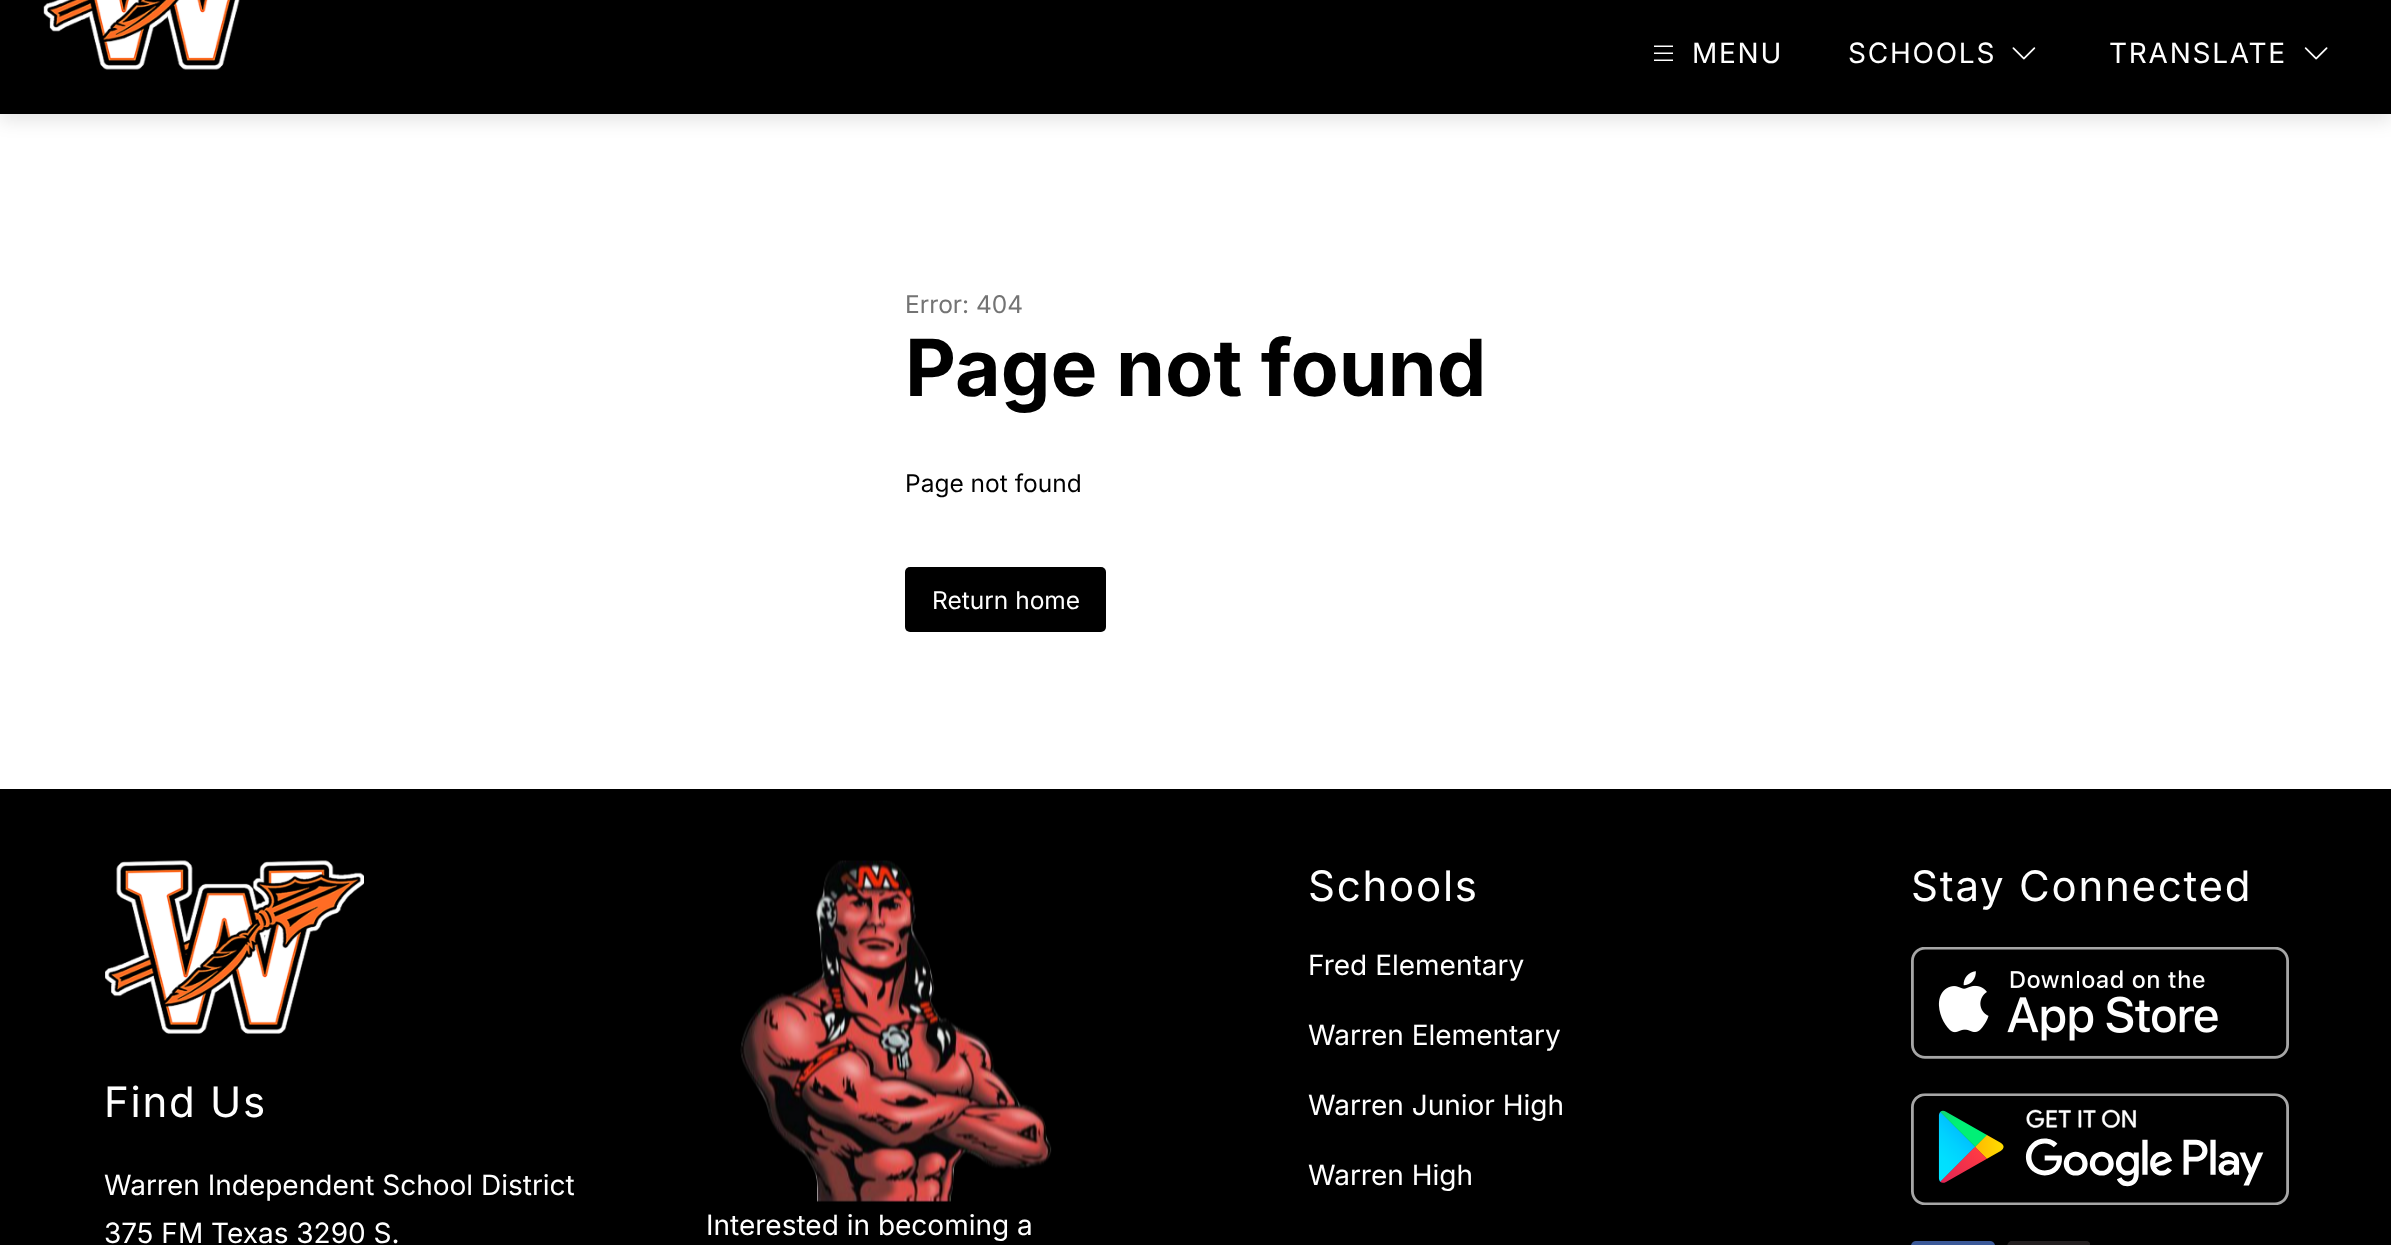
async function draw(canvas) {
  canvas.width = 2391
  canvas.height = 1245
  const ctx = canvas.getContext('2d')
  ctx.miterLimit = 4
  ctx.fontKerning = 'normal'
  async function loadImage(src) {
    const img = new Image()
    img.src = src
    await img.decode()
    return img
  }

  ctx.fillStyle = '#fff'
  ctx.fillRect(0, 0, 2391, 1245)
  ctx.fillStyle = '#0000001a'
  ctx.filter = 'blur(9px)'
  ctx.beginPath()
  ctx.rect(0, -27, 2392, 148)
  ctx.fill()
  ctx.filter = 'none'
  ctx.fillStyle = '#000'
  ctx.fillRect(0, 0, 2391, 114)
  ctx.drawImage(await loadImage('image0.png'), 43, 0, 197, 70)
  ctx.fillStyle = '#fff'
  ctx.beginPath()
  ctx.moveTo(1654, 45.5)
  ctx.lineTo(1673, 45.5)
  ctx.lineTo(1673, 47)
  ctx.lineTo(1654, 47)
  ctx.closePath()
  ctx.moveTo(1654, 52.5)
  ctx.lineTo(1673, 52.5)
  ctx.lineTo(1673, 54)
  ctx.lineTo(1654, 54)
  ctx.closePath()
  ctx.moveTo(1673, 59.5)
  ctx.lineTo(1654, 59.5)
  ctx.lineTo(1654, 61)
  ctx.lineTo(1673, 61)
  ctx.closePath()
  ctx.fill('evenodd')
  ctx.letterSpacing = '1.75px'
  ctx.font = '28px Inter'
  ctx.fillText('MENU', 1692, 63)
  ctx.fillText('SCHOOLS', 1848, 63)
  ctx.drawImage(await loadImage('image1.png'), 2012, 47, 24, 13)
  ctx.fillText('TRANSLATE', 2109, 63)
  ctx.drawImage(await loadImage('image2.png'), 2304, 47, 24, 13)
  ctx.letterSpacing = '0px'
  ctx.font = '24.5px Inter'
  ctx.fillStyle = '#747474'
  ctx.fillText('Error: 404', 905, 313)
  ctx.font = 'bold 78.75px Inter'
  ctx.fillStyle = '#000'
  ctx.fillText('Page not found', 905, 396)
  ctx.font = '24.5px Inter'
  ctx.fillText('Page not found', 905, 492)
  ctx.beginPath()
  ctx.roundRect(905, 567, 201, 65, 5)
  ctx.fill()
  ctx.fillStyle = '#fff'
  ctx.fillText('Return home', 932, 609)
  ctx.fillStyle = '#000'
  ctx.fillRect(0, 789, 2391, 456)
  ctx.letterSpacing = '1.75px'
  ctx.font = '42px Inter'
  ctx.fillStyle = '#fff'
  ctx.fillText('Schools', 1308, 901)
  ctx.letterSpacing = '0px'
  ctx.font = '28px Inter'
  ctx.fillText('Fred Elementary', 1308, 975)
  ctx.fillText('Warren Elementary', 1308, 1045)
  ctx.fillText('Warren Junior High', 1308, 1115)
  ctx.fillText('Warren High', 1308, 1185)
  ctx.letterSpacing = '1.75px'
  ctx.font = '42px Inter'
  ctx.fillText('Stay Connected', 1911, 901)
  ctx.drawImage(await loadImage('image3.png'), 1911, 947, 378, 112)
  ctx.drawImage(await loadImage('image4.png'), 1911, 1093, 378, 112)
  ctx.drawImage(await loadImage('image5.png'), 1911, 1241, 84, 4)
  ctx.drawImage(await loadImage('image6.png'), 2007, 1241, 83, 4)
  ctx.drawImage(await loadImage('image7.png'), 105, 860, 259, 174)
  ctx.fillText('Find Us', 104, 1117)
  ctx.letterSpacing = '0px'
  ctx.font = '28px Inter'
  ctx.fillText('Warren Independent School District', 104, 1195)
  ctx.fillText('375 FM Texas 3290 S.', 104, 1243)
  ctx.drawImage(await loadImage('image8.png'), 740, 860, 312, 342)
  ctx.fillText('Interested in becoming a', 706, 1235)
}

draw(document.querySelector('canvas'))
